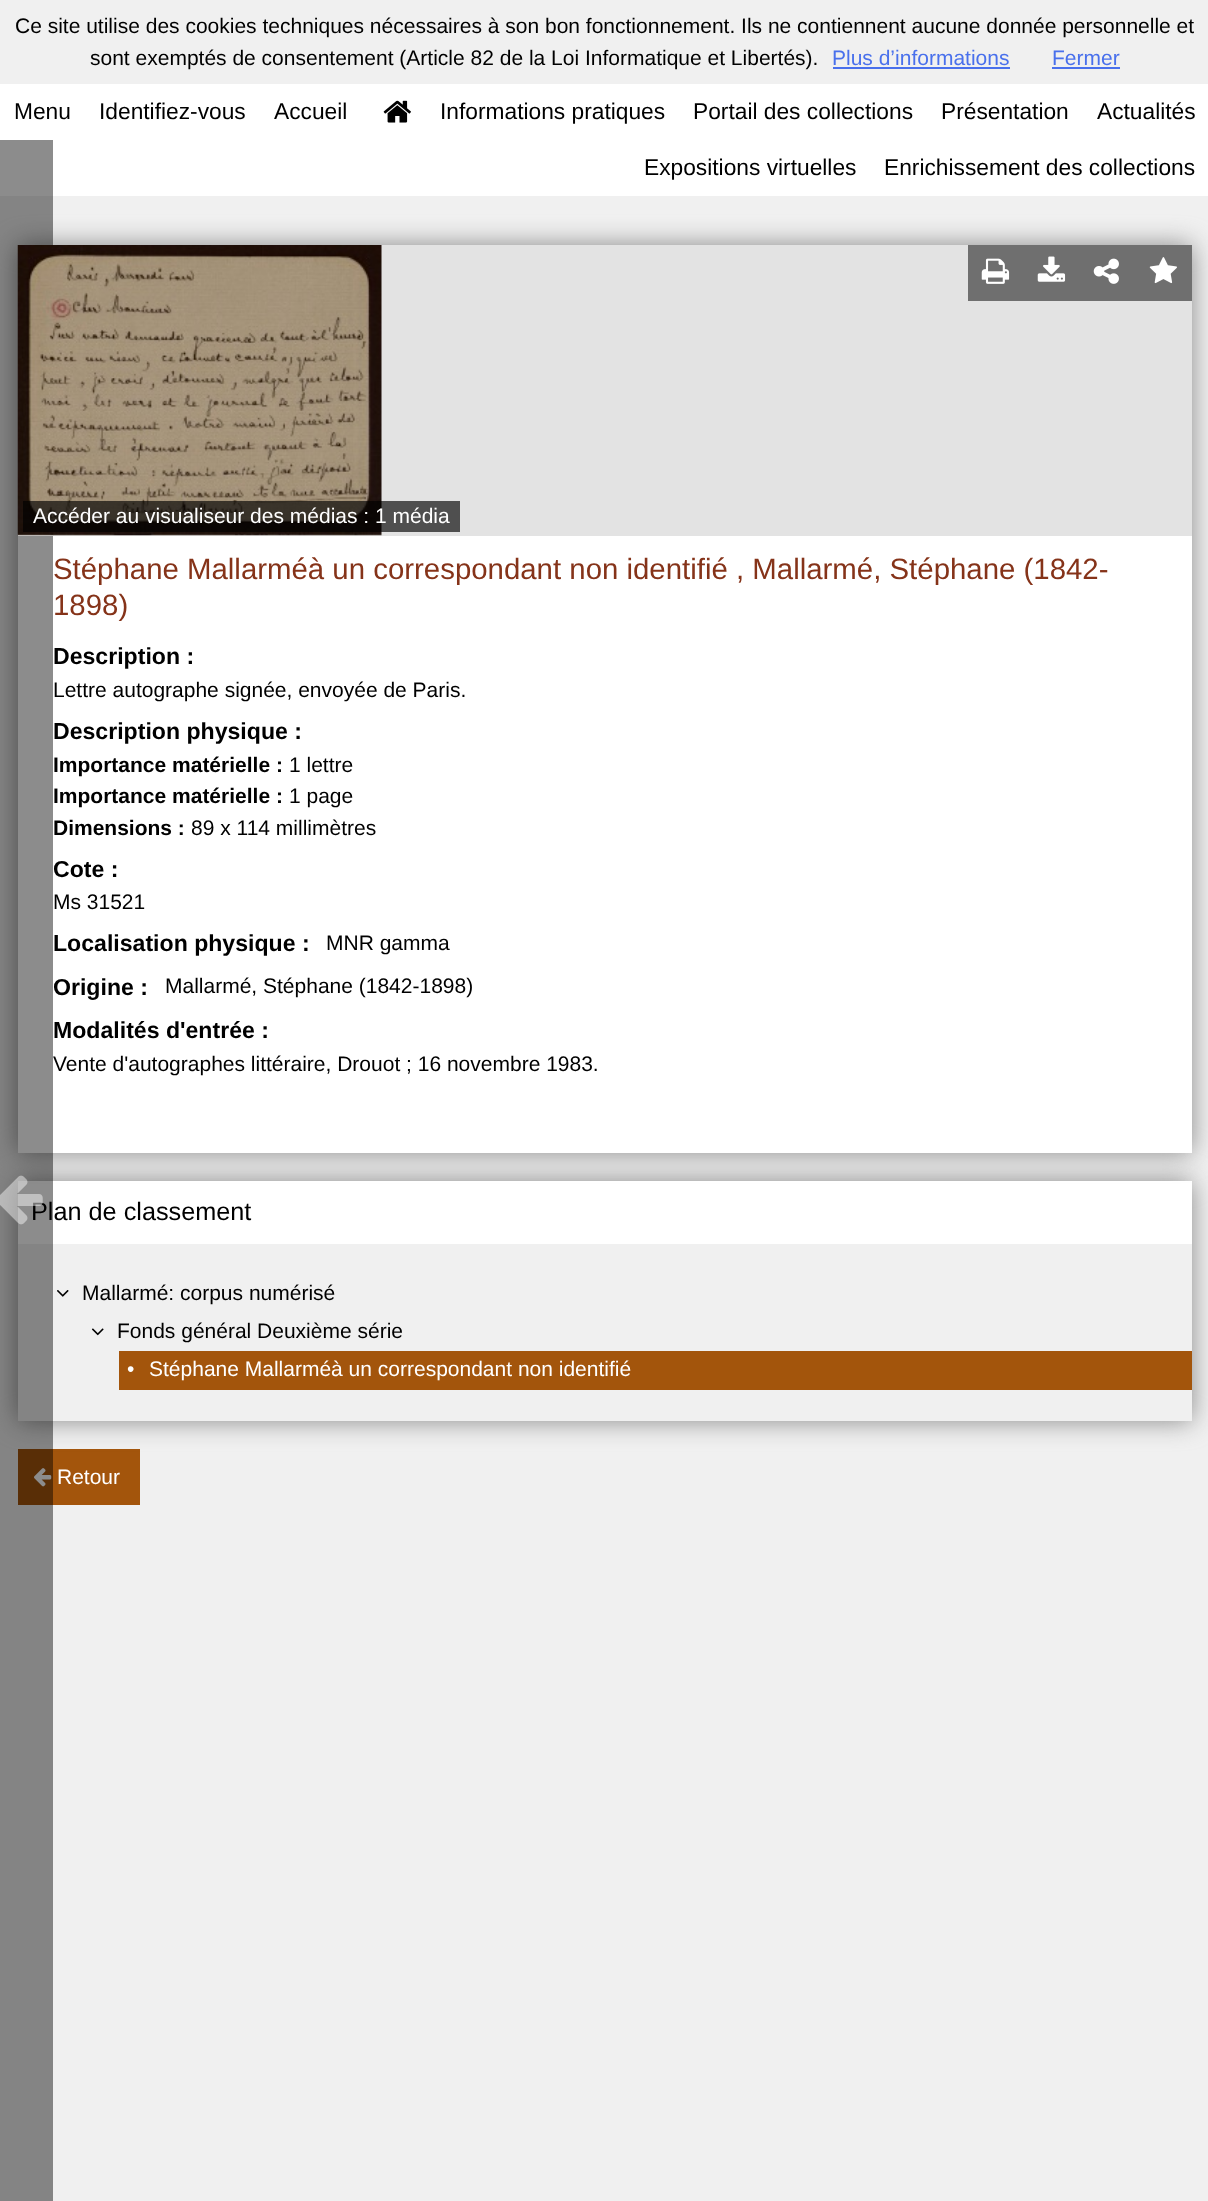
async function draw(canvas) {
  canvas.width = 1208
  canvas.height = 2201
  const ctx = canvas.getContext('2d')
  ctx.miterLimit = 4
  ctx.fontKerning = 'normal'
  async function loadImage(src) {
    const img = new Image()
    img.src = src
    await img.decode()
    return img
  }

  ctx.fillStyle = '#f0f0f0'
  ctx.fillRect(0, 0, 1208, 2201)
  ctx.font = '21px Liberation Sans'
  ctx.fillStyle = '#000'
  ctx.fillText('Ce site utilise des cookies techniques nécessaires à son bon fonctionnement. Ils ne contiennent aucune donnée personnelle et', 15, 33)
  ctx.fillText('sont exemptés de consentement (Article 82 de la Loi Informatique et Libertés).', 90, 65)
  ctx.fillStyle = '#4970ec'
  ctx.fillText('Plus d’informations', 832, 65)
  ctx.fillRect(833, 67, 177, 2)
  ctx.fillText('Fermer', 1052, 65)
  ctx.fillRect(1052, 67, 68, 2)
  ctx.fillStyle = '#fff'
  ctx.fillRect(0, 84, 1208, 112)
  ctx.font = '22.75px Liberation Sans'
  ctx.fillStyle = '#000'
  ctx.fillText('Menu', 14, 119)
  ctx.fillText('Identifiez-vous', 99, 119)
  ctx.fillText('Accueil', 274, 119)
  ctx.drawImage(await loadImage('image0.png'), 383, 100, 28, 23)
  ctx.fillText('Informations pratiques', 440, 119)
  ctx.fillText('Portail des collections', 693, 119)
  ctx.fillText('Présentation', 941, 119)
  ctx.fillText('Actualités', 1097, 119)
  ctx.fillText('Expositions virtuelles', 644, 175)
  ctx.fillText('Enrichissement des collections', 884, 175)
  ctx.fillStyle = '#a3550c'
  ctx.fillRect(18, 1449, 122, 56)
  ctx.fillStyle = '#888'
  ctx.filter = 'blur(13px)'
  ctx.beginPath()
  ctx.rect(18, 1181, 1174, 240)
  ctx.fill()
  ctx.filter = 'none'
  ctx.fillStyle = '#fff'
  ctx.fillRect(18, 1181, 1174, 63)
  ctx.fillStyle = '#888'
  ctx.filter = 'blur(13px)'
  ctx.beginPath()
  ctx.rect(18, 245, 1174, 908)
  ctx.fill()
  ctx.filter = 'none'
  ctx.fillStyle = '#fff'
  ctx.fillRect(18, 536, 1174, 617)
  ctx.font = '25.25px Liberation Sans'
  ctx.fillStyle = '#000'
  ctx.fillText('Plan de classement', 31, 1220)
  ctx.fillStyle = '#f0f0f0'
  ctx.fillRect(18, 1244, 1174, 177)
  ctx.drawImage(await loadImage('image9.png'), 34, 1468, 18, 19)
  ctx.fillStyle = '#00000073'
  ctx.fillRect(0, 140, 53, 2061)
  ctx.drawImage(await loadImage('image1.png'), 0, 1175, 43, 50)
  ctx.fillStyle = '#e3e3e3'
  ctx.fillRect(18, 245, 1174, 291)
  ctx.fillStyle = '#6f6f6f'
  ctx.fillRect(968, 245, 112, 56)
  ctx.drawImage(await loadImage('image2.png'), 981, 258, 29, 26)
  ctx.fillRect(1080, 245, 112, 56)
  ctx.drawImage(await loadImage('image3.png'), 1149, 257, 28, 27)
  ctx.drawImage(await loadImage('image4.png'), 1037, 256, 29, 26)
  ctx.drawImage(await loadImage('image5.png'), 1093, 258, 26, 26)
  ctx.drawImage(await loadImage('image6.png'), 17, 245, 365, 291)
  ctx.fillStyle = '#000000a6'
  ctx.fillRect(23, 501, 437, 31)
  ctx.font = '21px Liberation Sans'
  ctx.fillStyle = '#fff'
  ctx.fillText('Accéder au visualiseur des médias : 1 média', 33, 523)
  ctx.font = '29.4px Liberation Sans'
  ctx.fillStyle = '#853319'
  ctx.fillText('Stéphane Mallarméà un correspondant non identifié', 53, 579)
  ctx.fillText(', Mallarmé, Stéphane (1842-', 736, 579)
  ctx.fillText('1898)', 53, 615)
  ctx.font = 'bold 23.1px Liberation Sans'
  ctx.fillStyle = '#000'
  ctx.fillText('Description :', 53, 664)
  ctx.font = '21px Liberation Sans'
  ctx.fillText('Lettre autographe signée, envoyée de Paris.', 53, 697)
  ctx.font = 'bold 23.1px Liberation Sans'
  ctx.fillText('Description physique :', 53, 739)
  ctx.font = 'bold 21px Liberation Sans'
  ctx.fillText('Importance matérielle :', 53, 772)
  ctx.font = '21px Liberation Sans'
  ctx.fillText('1 lettre', 289, 772)
  ctx.font = 'bold 21px Liberation Sans'
  ctx.fillText('Importance matérielle :', 53, 803)
  ctx.font = '21px Liberation Sans'
  ctx.fillText('1 page', 289, 803)
  ctx.font = 'bold 21px Liberation Sans'
  ctx.fillText('Dimensions :', 53, 835)
  ctx.font = '21px Liberation Sans'
  ctx.fillText('89 x 114 millimètres', 191, 835)
  ctx.font = 'bold 23.1px Liberation Sans'
  ctx.fillText('Cote :', 53, 877)
  ctx.font = '21px Liberation Sans'
  ctx.fillText('Ms 31521', 53, 909)
  ctx.font = 'bold 23.1px Liberation Sans'
  ctx.fillText('Localisation physique :', 53, 951)
  ctx.font = '21px Liberation Sans'
  ctx.fillText('MNR gamma', 326, 950)
  ctx.font = 'bold 23.1px Liberation Sans'
  ctx.fillText('Origine :', 53, 995)
  ctx.font = '21px Liberation Sans'
  ctx.fillText('Mallarmé, Stéphane (1842-1898)', 165, 993)
  ctx.font = 'bold 23.1px Liberation Sans'
  ctx.fillText('Modalités d\'entrée :', 53, 1038)
  ctx.font = '21px Liberation Sans'
  ctx.fillText('Vente d\'autographes littéraire, Drouot ; 16 novembre 1983.', 53, 1071)
  ctx.drawImage(await loadImage('image7.png'), 57, 1290, 12, 7)
  ctx.fillText('Mallarmé: corpus numérisé', 82, 1300)
  ctx.drawImage(await loadImage('image8.png'), 91, 1328, 13, 8)
  ctx.fillText('Fonds général Deuxième série', 117, 1338)
  ctx.fillStyle = '#a3550c'
  ctx.fillRect(119, 1351, 1073, 39)
  ctx.fillStyle = '#fff'
  ctx.fillText('•', 127, 1376)
  ctx.fillText('Stéphane Mallarméà un correspondant non identifié', 149, 1376)
  ctx.fillText('Retour', 57, 1484)
}

draw(document.querySelector('canvas'))
